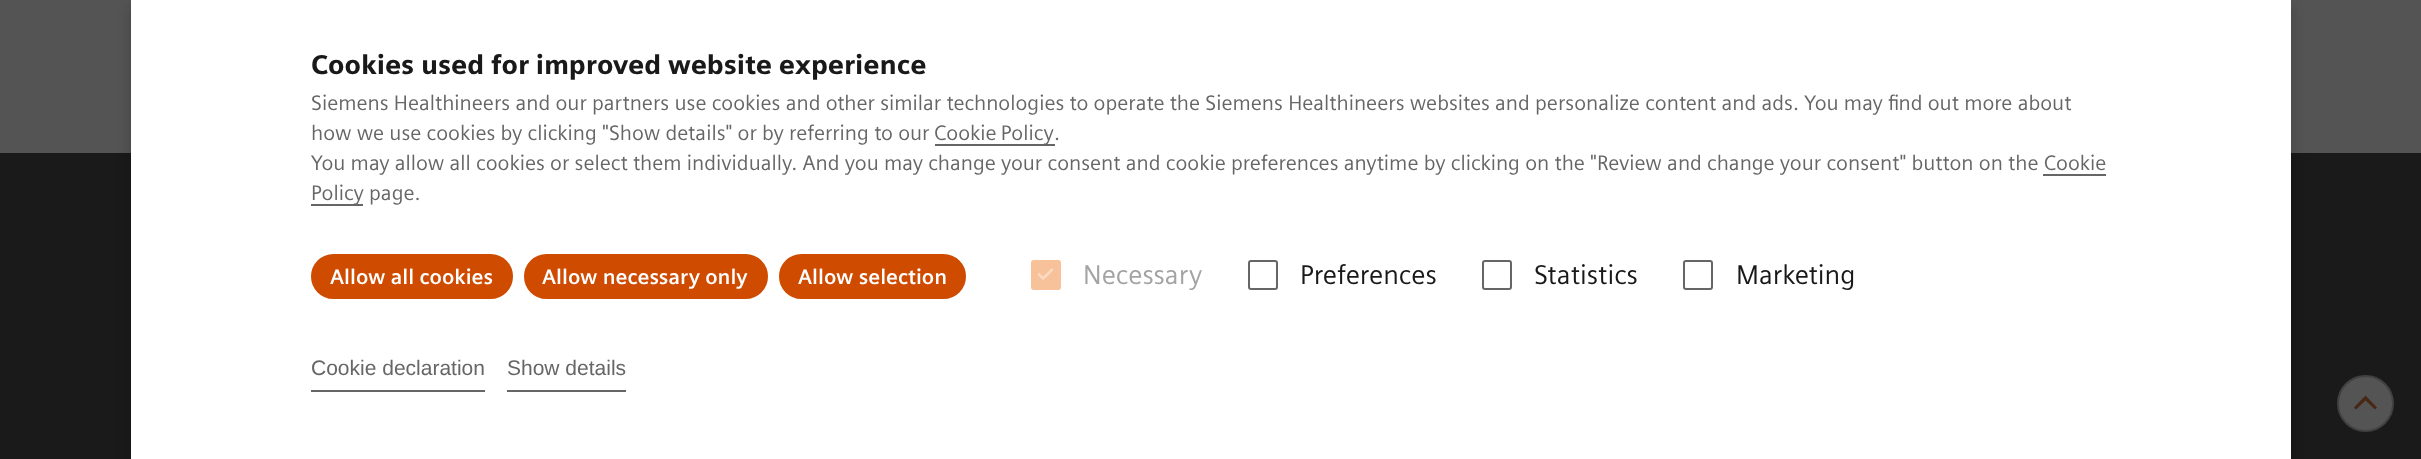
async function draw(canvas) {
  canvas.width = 2421
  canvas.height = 459
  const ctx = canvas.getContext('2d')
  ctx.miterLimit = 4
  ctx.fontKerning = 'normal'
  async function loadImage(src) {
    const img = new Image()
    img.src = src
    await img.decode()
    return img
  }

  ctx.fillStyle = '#545454'
  ctx.fillRect(0, 0, 2421, 459)
  ctx.fillStyle = '#1a1a1a'
  ctx.fillRect(0, 153, 2421, 306)
  ctx.fillStyle = '#00000033'
  ctx.filter = 'blur(7px)'
  ctx.beginPath()
  ctx.rect(131, 6, 2160, 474)
  ctx.fill()
  ctx.filter = 'none'
  ctx.fillStyle = '#fff'
  ctx.fillRect(131, 0, 2160, 459)
  ctx.font = '900 27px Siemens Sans'
  ctx.fillStyle = '#1a1919'
  ctx.fillText('Cookies used for improved website experience', 311, 74)
  ctx.font = '21px Siemens Sans'
  ctx.fillStyle = '#666'
  ctx.fillText('Siemens Healthineers and our partners use cookies and other similar technologies to operate the Siemens Healthineers websites and personalize content and ads. You may find out more about', 311, 110)
  ctx.fillText('how we use cookies by clicking "Show details" or by referring to our', 311, 140)
  ctx.fillRect(935, 144, 120, 2)
  ctx.wordSpacing = '-1px'
  ctx.fillText('Cookie Policy', 934, 140)
  ctx.wordSpacing = '0px'
  ctx.fillText('.', 1054, 140)
  ctx.fillText('You may allow all cookies or select them individually. And you may change your consent and cookie preferences anytime by clicking on the "Review and change your consent" button on the Cookie', 311, 170)
  ctx.fillRect(311, 204, 52, 2)
  ctx.fillText('Policy page.', 311, 200)
  ctx.fillRect(2043, 174, 63, 2)
  ctx.fillStyle = '#cf4b00'
  ctx.beginPath()
  ctx.roundRect(312, 255, 200, 43, 21.5)
  ctx.fill()
  ctx.strokeStyle = '#cf4b00'
  ctx.lineWidth = 2
  ctx.stroke()
  ctx.font = 'bold 21px Siemens Sans'
  ctx.fillStyle = '#fff'
  ctx.fillText('Allow all cookies', 330, 284)
  ctx.fillStyle = '#cf4b00'
  ctx.beginPath()
  ctx.roundRect(525, 255, 242, 43, 21.5)
  ctx.fill()
  ctx.stroke()
  ctx.fillStyle = '#fff'
  ctx.fillText('Allow necessary only', 542, 284)
  ctx.fillStyle = '#cf4b00'
  ctx.beginPath()
  ctx.roundRect(780, 255, 185, 43, 21.5)
  ctx.fill()
  ctx.stroke()
  ctx.fillStyle = '#fff'
  ctx.fillText('Allow selection', 798, 284)
  ctx.fillStyle = '#f7c29a'
  ctx.beginPath()
  ctx.roundRect(1032, 261, 28, 28, 2)
  ctx.fill()
  ctx.strokeStyle = '#f7c29a'
  ctx.stroke()
  ctx.drawImage(await loadImage('image0.png'), 1037, 268, 17, 12)
  ctx.font = '27px Siemens Sans'
  ctx.fillStyle = '#a3a3a3'
  ctx.fillText('Necessary', 1083, 284)
  ctx.beginPath()
  ctx.roundRect(1249, 261, 28, 28, 2)
  ctx.strokeStyle = '#666'
  ctx.stroke()
  ctx.fillStyle = '#1a1919'
  ctx.fillText('Preferences', 1300, 284)
  ctx.beginPath()
  ctx.roundRect(1483, 261, 28, 28, 2)
  ctx.stroke()
  ctx.fillText('Statistics', 1534, 284)
  ctx.beginPath()
  ctx.roundRect(1684, 261, 28, 28, 2)
  ctx.stroke()
  ctx.fillText('Marketing', 1736, 284)
  ctx.fillStyle = '#666'
  ctx.fillRect(311, 390, 174, 2)
  ctx.font = '21px Liberation Sans'
  ctx.fillText('Cookie declaration', 311, 375)
  ctx.fillRect(507, 390, 119, 2)
  ctx.fillText('Show details', 507, 375)
  ctx.fillStyle = '#545454'
  ctx.beginPath()
  ctx.arc(2365.5, 403.5, 27.5, 0, 2 * Math.PI)
  ctx.fill()
  ctx.strokeStyle = '#414141'
  ctx.stroke()
  ctx.fillStyle = '#482714'
  ctx.beginPath()
  ctx.moveTo(2377, 407.5)
  ctx.lineTo(2375, 409.5)
  ctx.lineTo(2365.5, 400.5)
  ctx.lineTo(2356, 409.5)
  ctx.lineTo(2354, 407.5)
  ctx.lineTo(2365.5, 395.5)
  ctx.closePath()
  ctx.fill()
}

draw(document.querySelector('canvas'))
